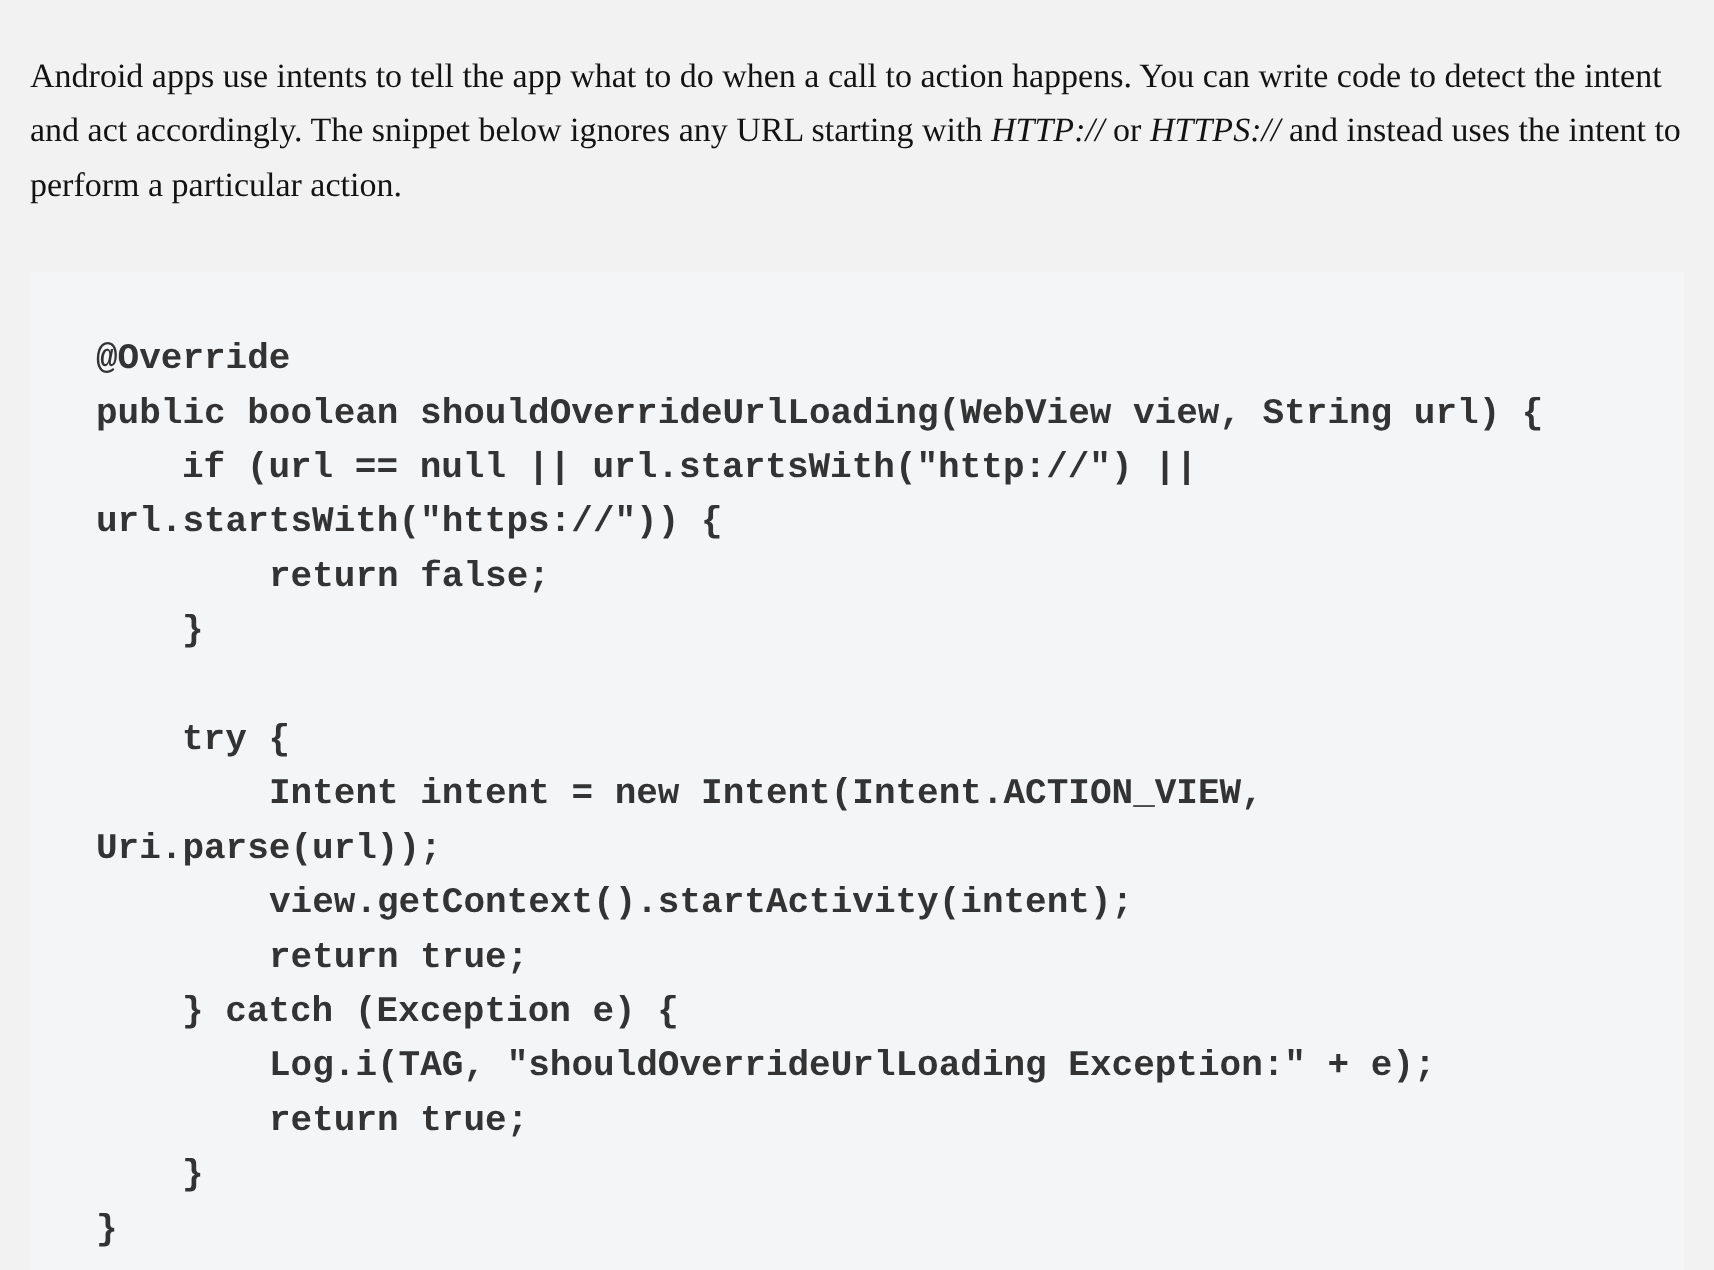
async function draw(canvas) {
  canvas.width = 1714
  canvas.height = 1270
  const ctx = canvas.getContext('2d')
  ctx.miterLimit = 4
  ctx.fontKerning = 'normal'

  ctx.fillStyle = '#f2f2f2'
  ctx.fillRect(0, 0, 1714, 1270)
  ctx.font = '34px Liberation Serif'
  ctx.fillStyle = '#131313'
  ctx.fillText('Android apps use intents to tell the app what to do when a call to action happens. You can write code to detect the intent', 30, 87)
  ctx.fillText('and act accordingly. The snippet below ignores any URL starting with', 30, 141)
  ctx.font = 'italic 34px Liberation Serif'
  ctx.fillText('HTTP://', 991, 141)
  ctx.font = '34px Liberation Serif'
  ctx.fillText('or', 1113, 141)
  ctx.font = 'italic 34px Liberation Serif'
  ctx.fillText('HTTPS://', 1150, 141)
  ctx.font = '34px Liberation Serif'
  ctx.fillText('and instead uses the intent to', 1289, 141)
  ctx.fillText('perform a particular action.', 30, 196)
  ctx.fillStyle = '#f4f5f7'
  ctx.fillRect(30, 272, 1654, 998)
  ctx.font = 'bold 36px Liberation Mono'
  ctx.fillStyle = '#333'
  ctx.fillText('@Override', 96, 368)
  ctx.fillText('public boolean shouldOverrideUrlLoading(WebView view, String url) {', 96, 423)
  ctx.fillText('if (url == null || url.startsWith("http://") ||', 182, 477)
  ctx.fillText('url.startsWith("https://")) {', 96, 531)
  ctx.fillText('return false;', 269, 586)
  ctx.fillText('}', 182, 640)
  ctx.fillText('try {', 182, 749)
  ctx.fillText('Intent intent = new Intent(Intent.ACTION_VIEW,', 269, 803)
  ctx.fillText('Uri.parse(url));', 96, 858)
  ctx.fillText('view.getContext().startActivity(intent);', 269, 912)
  ctx.fillText('return true;', 269, 967)
  ctx.fillText('} catch (Exception e) {', 182, 1021)
  ctx.fillText('Log.i(TAG, "shouldOverrideUrlLoading Exception:" + e);', 269, 1075)
  ctx.fillText('return true;', 269, 1130)
  ctx.fillText('}', 182, 1184)
  ctx.fillText('}', 96, 1239)
}

draw(document.querySelector('canvas'))
